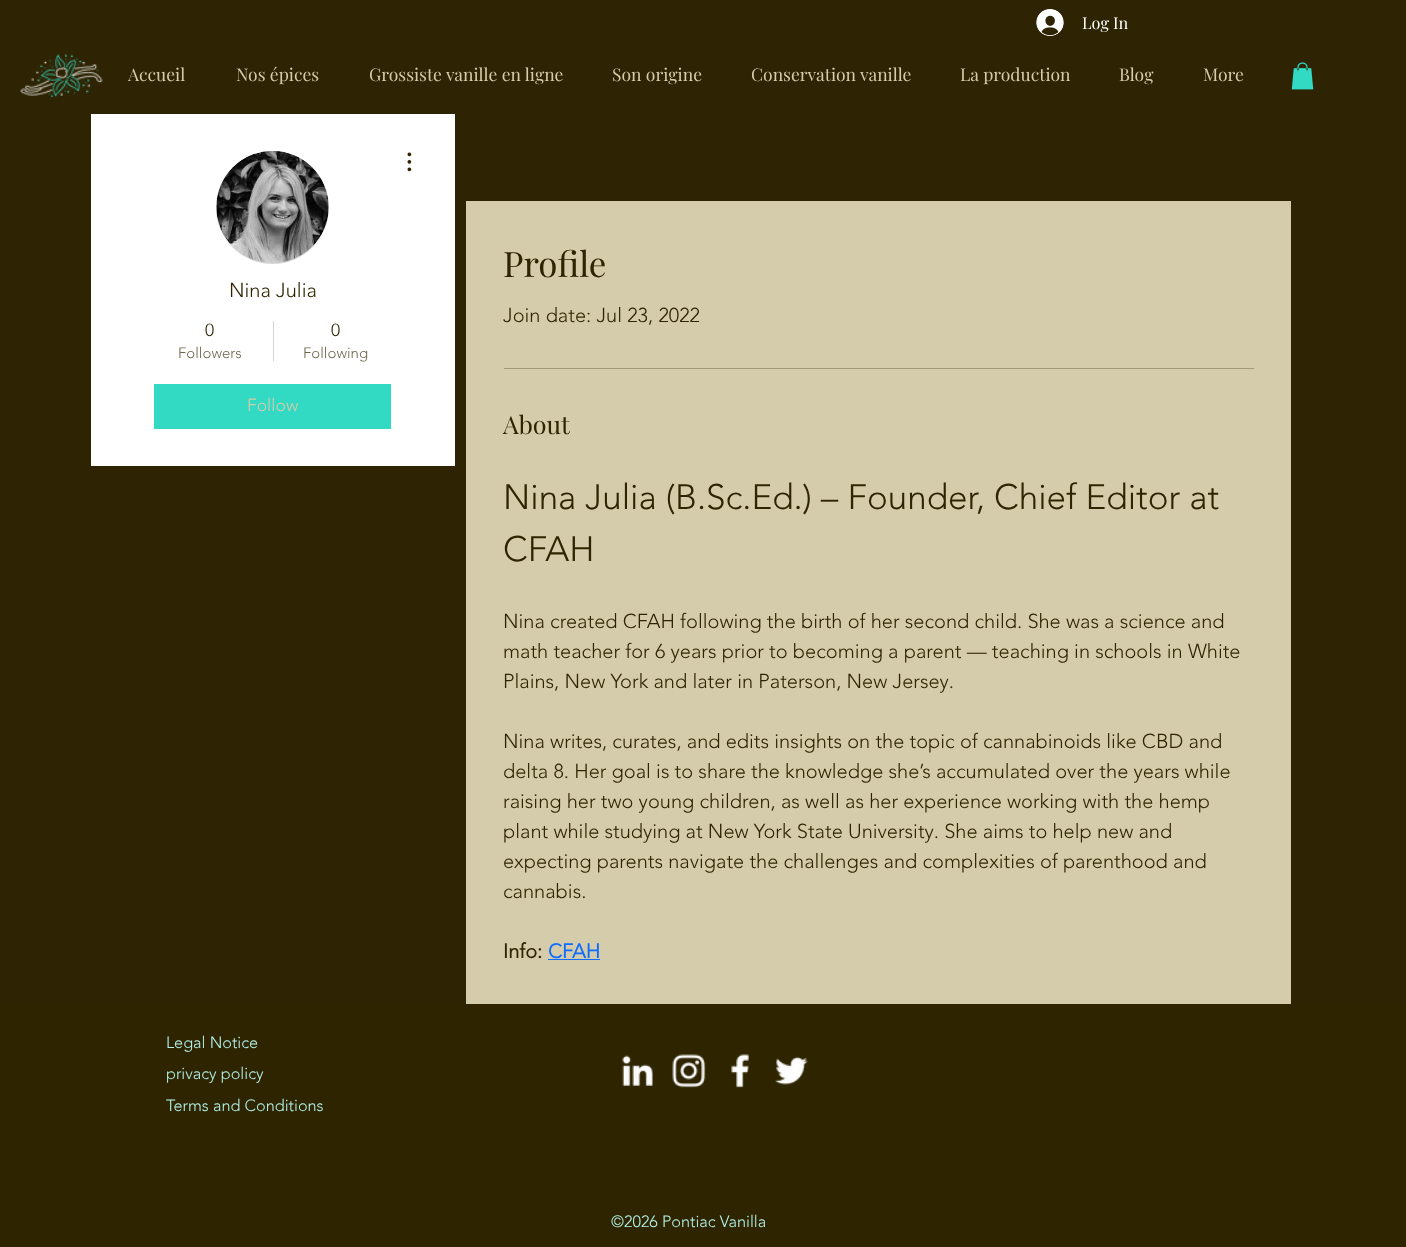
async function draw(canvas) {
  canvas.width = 1406
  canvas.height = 1247
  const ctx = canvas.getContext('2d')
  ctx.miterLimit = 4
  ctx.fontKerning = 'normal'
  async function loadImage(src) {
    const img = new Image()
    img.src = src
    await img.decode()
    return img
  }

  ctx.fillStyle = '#2e2404'
  ctx.fillRect(0, 0, 1406, 1247)
  ctx.drawImage(await loadImage('image0.png'), 1036, 9, 28, 27)
  ctx.font = '16.25px Playfair Display'
  ctx.fillStyle = '#fff'
  ctx.fillText('Log In', 1082, 29)
  ctx.drawImage(await loadImage('image1.png'), 20, 54, 83, 44)
  ctx.font = '17.5px Playfair Display'
  ctx.fillStyle = '#d5ccab'
  ctx.fillText('Accueil', 128, 81)
  ctx.fillText('Nos épices', 236, 81)
  ctx.fillText('Grossiste vanille en ligne', 369, 81)
  ctx.fillText('Son origine', 612, 81)
  ctx.fillText('Conservation vanille', 751, 81)
  ctx.fillText('La production', 960, 81)
  ctx.fillText('Blog', 1119, 81)
  ctx.fillText('More', 1203, 81)
  ctx.drawImage(await loadImage('image2.png'), 1291, 62, 23, 28)
  ctx.fillStyle = '#fff'
  ctx.fillRect(91, 114, 364, 352)
  ctx.fillStyle = '#d8d8d8'
  ctx.beginPath()
  ctx.arc(272.5, 207.5, 56.5, 0, 2 * Math.PI)
  ctx.fill()
  ctx.drawImage(await loadImage('image3.png'), 216, 151, 113, 112)
  ctx.drawImage(await loadImage('image4.png'), 407, 152, 5, 20)
  ctx.font = '300 20px "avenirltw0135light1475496"'
  ctx.fillStyle = '#2e2400'
  ctx.fillText('Nina Julia', 229, 297)
  ctx.font = '300 17.5px "avenirltw0135light1475496"'
  ctx.fillText('0', 205, 336)
  ctx.font = '300 15px "avenirltw0135light1475496"'
  ctx.fillStyle = '#6d664d'
  ctx.fillText('Followers', 178, 358)
  ctx.fillStyle = '#d5d3cc'
  ctx.fillRect(273, 321, 1, 40)
  ctx.font = '300 17.5px "avenirltw0135light1475496"'
  ctx.fillStyle = '#2e2400'
  ctx.fillText('0', 331, 336)
  ctx.font = '300 15px "avenirltw0135light1475496"'
  ctx.fillStyle = '#6d664d'
  ctx.fillText('Following', 303, 358)
  ctx.fillStyle = '#32dac3'
  ctx.fillRect(154, 384, 237, 45)
  ctx.font = '300 17.5px "avenirltw0135light1475496"'
  ctx.fillStyle = '#d5ccab'
  ctx.fillText('Follow', 247, 411)
  ctx.fillRect(466, 201, 825, 803)
  ctx.font = '35px Playfair Display'
  ctx.fillStyle = '#2e2400'
  ctx.fillText('Profile', 503, 277)
  ctx.font = '300 20px "avenirltw0135light1475496"'
  ctx.fillText('Join date: Jul 23, 2022', 503, 322)
  ctx.fillStyle = '#a39a78'
  ctx.fillRect(504, 368, 750, 1)
  ctx.font = '25px Playfair Display'
  ctx.fillStyle = '#2e2400'
  ctx.fillText('About', 503, 434)
  ctx.font = '300 35px "avenirltw0135light1475496"'
  ctx.fillText('Nina Julia (B.Sc.Ed.) – Founder, Chief Editor at', 503, 509)
  ctx.fillText('CFAH', 503, 561)
  ctx.font = '300 20px "avenirltw0135light1475496"'
  ctx.fillText('Nina created CFAH following the birth of her second child. She was a science and', 503, 628)
  ctx.fillText('math teacher for 6 years prior to becoming a parent — teaching in schools in White', 503, 658)
  ctx.fillText('Plains, New York and later in Paterson, New Jersey.', 503, 688)
  ctx.fillText('Nina writes, curates, and edits insights on the topic of cannabinoids like CBD and', 503, 748)
  ctx.fillText('delta 8. Her goal is to share the knowledge she’s accumulated over the years while', 503, 778)
  ctx.fillText('raising her two young children, as well as her experience working with the hemp', 503, 808)
  ctx.fillText('plant while studying at New York State University. She aims to help new and', 503, 838)
  ctx.fillText('expecting parents navigate the challenges and complexities of parenthood and', 503, 868)
  ctx.fillText('cannabis.', 503, 898)
  ctx.font = 'bold 20px "avenirltw0135light1475496"'
  ctx.fillText('Info:', 503, 958)
  ctx.fillStyle = '#116dff'
  ctx.fillText('CFAH', 548, 958)
  ctx.fillRect(548, 959, 52, 1)
  ctx.fillStyle = '#2e2400'
  ctx.fillRect(0, 1005, 1406, 242)
  ctx.font = '300 16.25px "avenirltw0135light1475496"'
  ctx.fillStyle = '#b4f3ea'
  ctx.fillText('Legal Notice', 166, 1048)
  ctx.fillText('privacy policy', 166, 1079)
  ctx.drawImage(await loadImage('image5.png'), 622, 1055, 31, 31)
  ctx.drawImage(await loadImage('image6.png'), 672, 1054, 34, 34)
  ctx.drawImage(await loadImage('image7.png'), 731, 1054, 18, 34)
  ctx.drawImage(await loadImage('image8.png'), 775, 1057, 33, 28)
  ctx.fillText('Terms and Conditions', 166, 1111)
  ctx.fillText('©2026 Pontiac Vanilla', 611, 1227)
}

draw(document.querySelector('canvas'))
